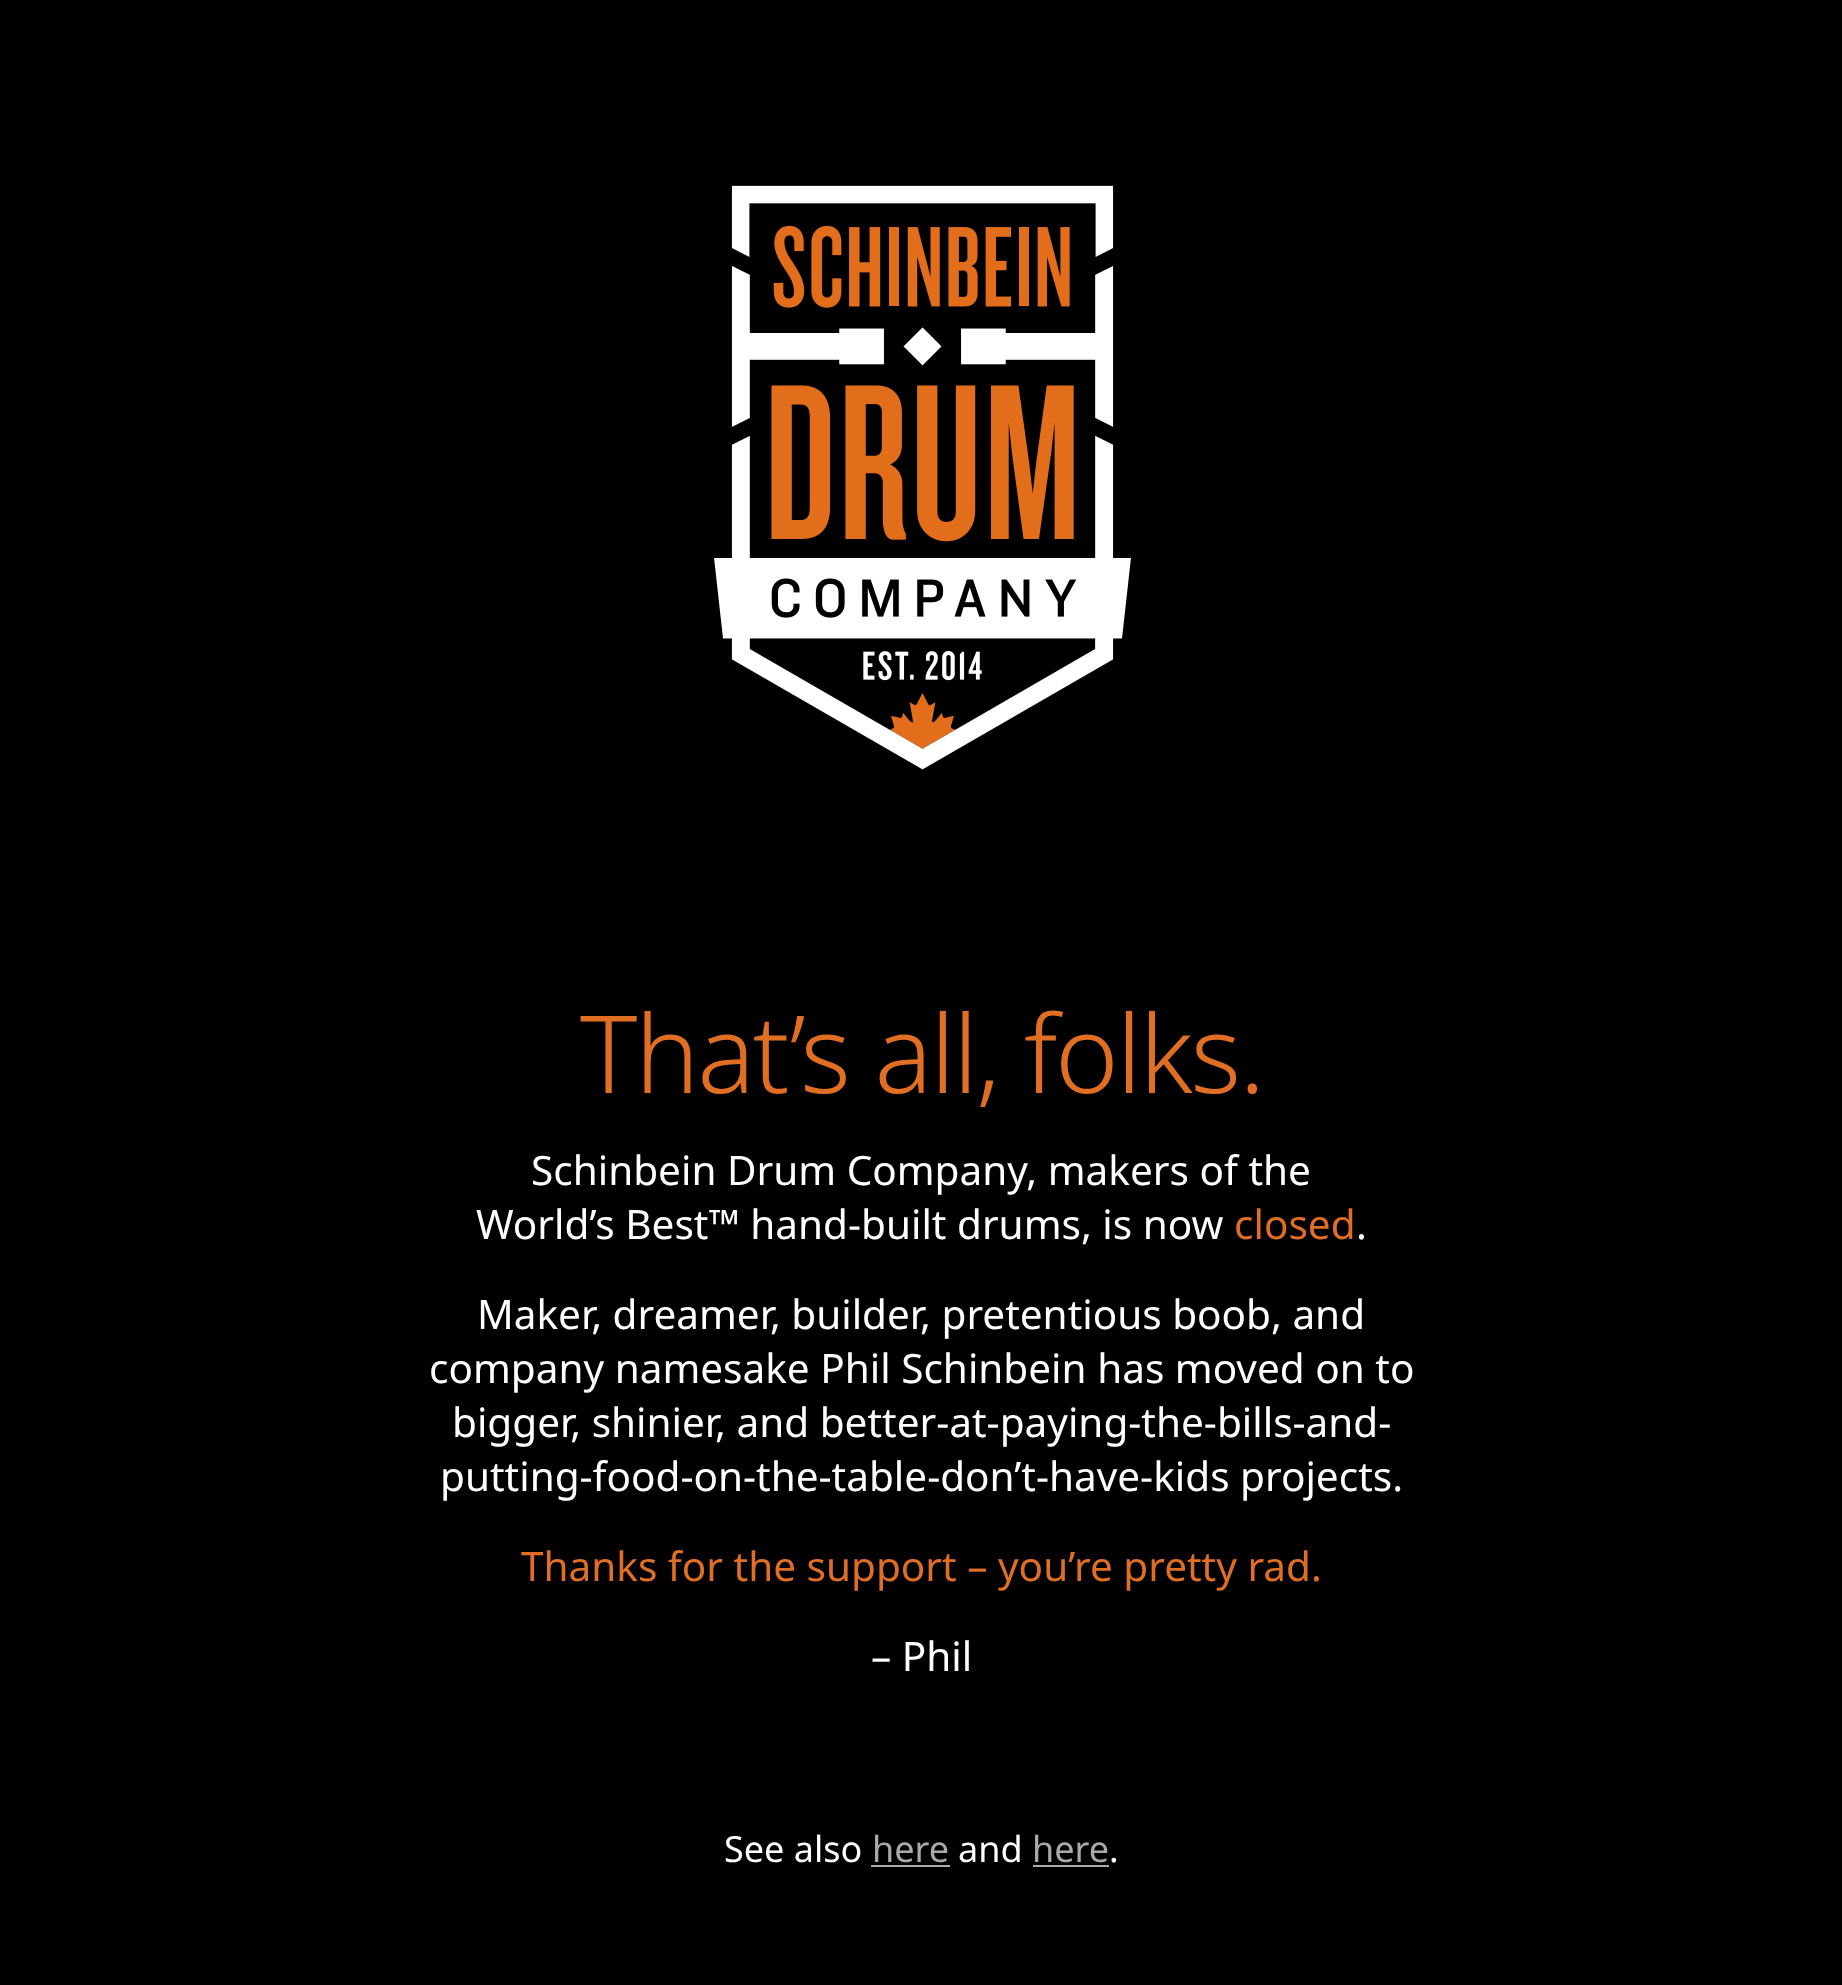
async function draw(canvas) {
  canvas.width = 1842
  canvas.height = 1985
  const ctx = canvas.getContext('2d')
  ctx.miterLimit = 4
  ctx.fontKerning = 'normal'
  async function loadImage(src) {
    const img = new Image()
    img.src = src
    await img.decode()
    return img
  }

  ctx.fillStyle = '#000'
  ctx.fillRect(0, 0, 1842, 1985)
  ctx.drawImage(await loadImage('image0.png'), 714, 185, 417, 585)
  ctx.letterSpacing = '-2.25px'
  ctx.font = '300 108px Noto Sans'
  ctx.fillStyle = '#e06e23'
  ctx.fillText('That’s all, folks.', 580, 1093)
  ctx.letterSpacing = '0px'
  ctx.font = '40.5px Noto Sans'
  ctx.fillStyle = '#fff'
  ctx.fillText('Schinbein Drum Company, makers of the', 531, 1185)
  ctx.fillText('World’s Best™ hand-built drums, is now', 476, 1239)
  ctx.fillStyle = '#e06e23'
  ctx.fillText('closed', 1234, 1239)
  ctx.fillStyle = '#fff'
  ctx.fillText('.', 1356, 1239)
  ctx.fillText('Maker, dreamer, builder, pretentious boob, and', 477, 1329)
  ctx.fillText('company namesake Phil Schinbein has moved on to', 429, 1383)
  ctx.fillText('bigger, shinier, and better-at-paying-the-bills-and-', 452, 1437)
  ctx.fillText('putting-food-on-the-table-don’t-have-kids projects.', 440, 1491)
  ctx.fillStyle = '#e06e23'
  ctx.fillText('Thanks for the support – you’re pretty rad.', 521, 1581)
  ctx.fillStyle = '#fff'
  ctx.fillText('– Phil', 871, 1671)
  ctx.font = '36px Noto Sans'
  ctx.fillText('See also', 724, 1862)
  ctx.fillStyle = '#aaa'
  ctx.fillText('here', 872, 1862)
  ctx.fillRect(871, 1865, 79, 2)
  ctx.fillStyle = '#fff'
  ctx.fillText('and', 958, 1862)
  ctx.fillStyle = '#aaa'
  ctx.fillText('here', 1032, 1862)
  ctx.fillRect(1033, 1865, 76, 2)
  ctx.fillStyle = '#fff'
  ctx.fillText('.', 1109, 1862)
}

draw(document.querySelector('canvas'))
